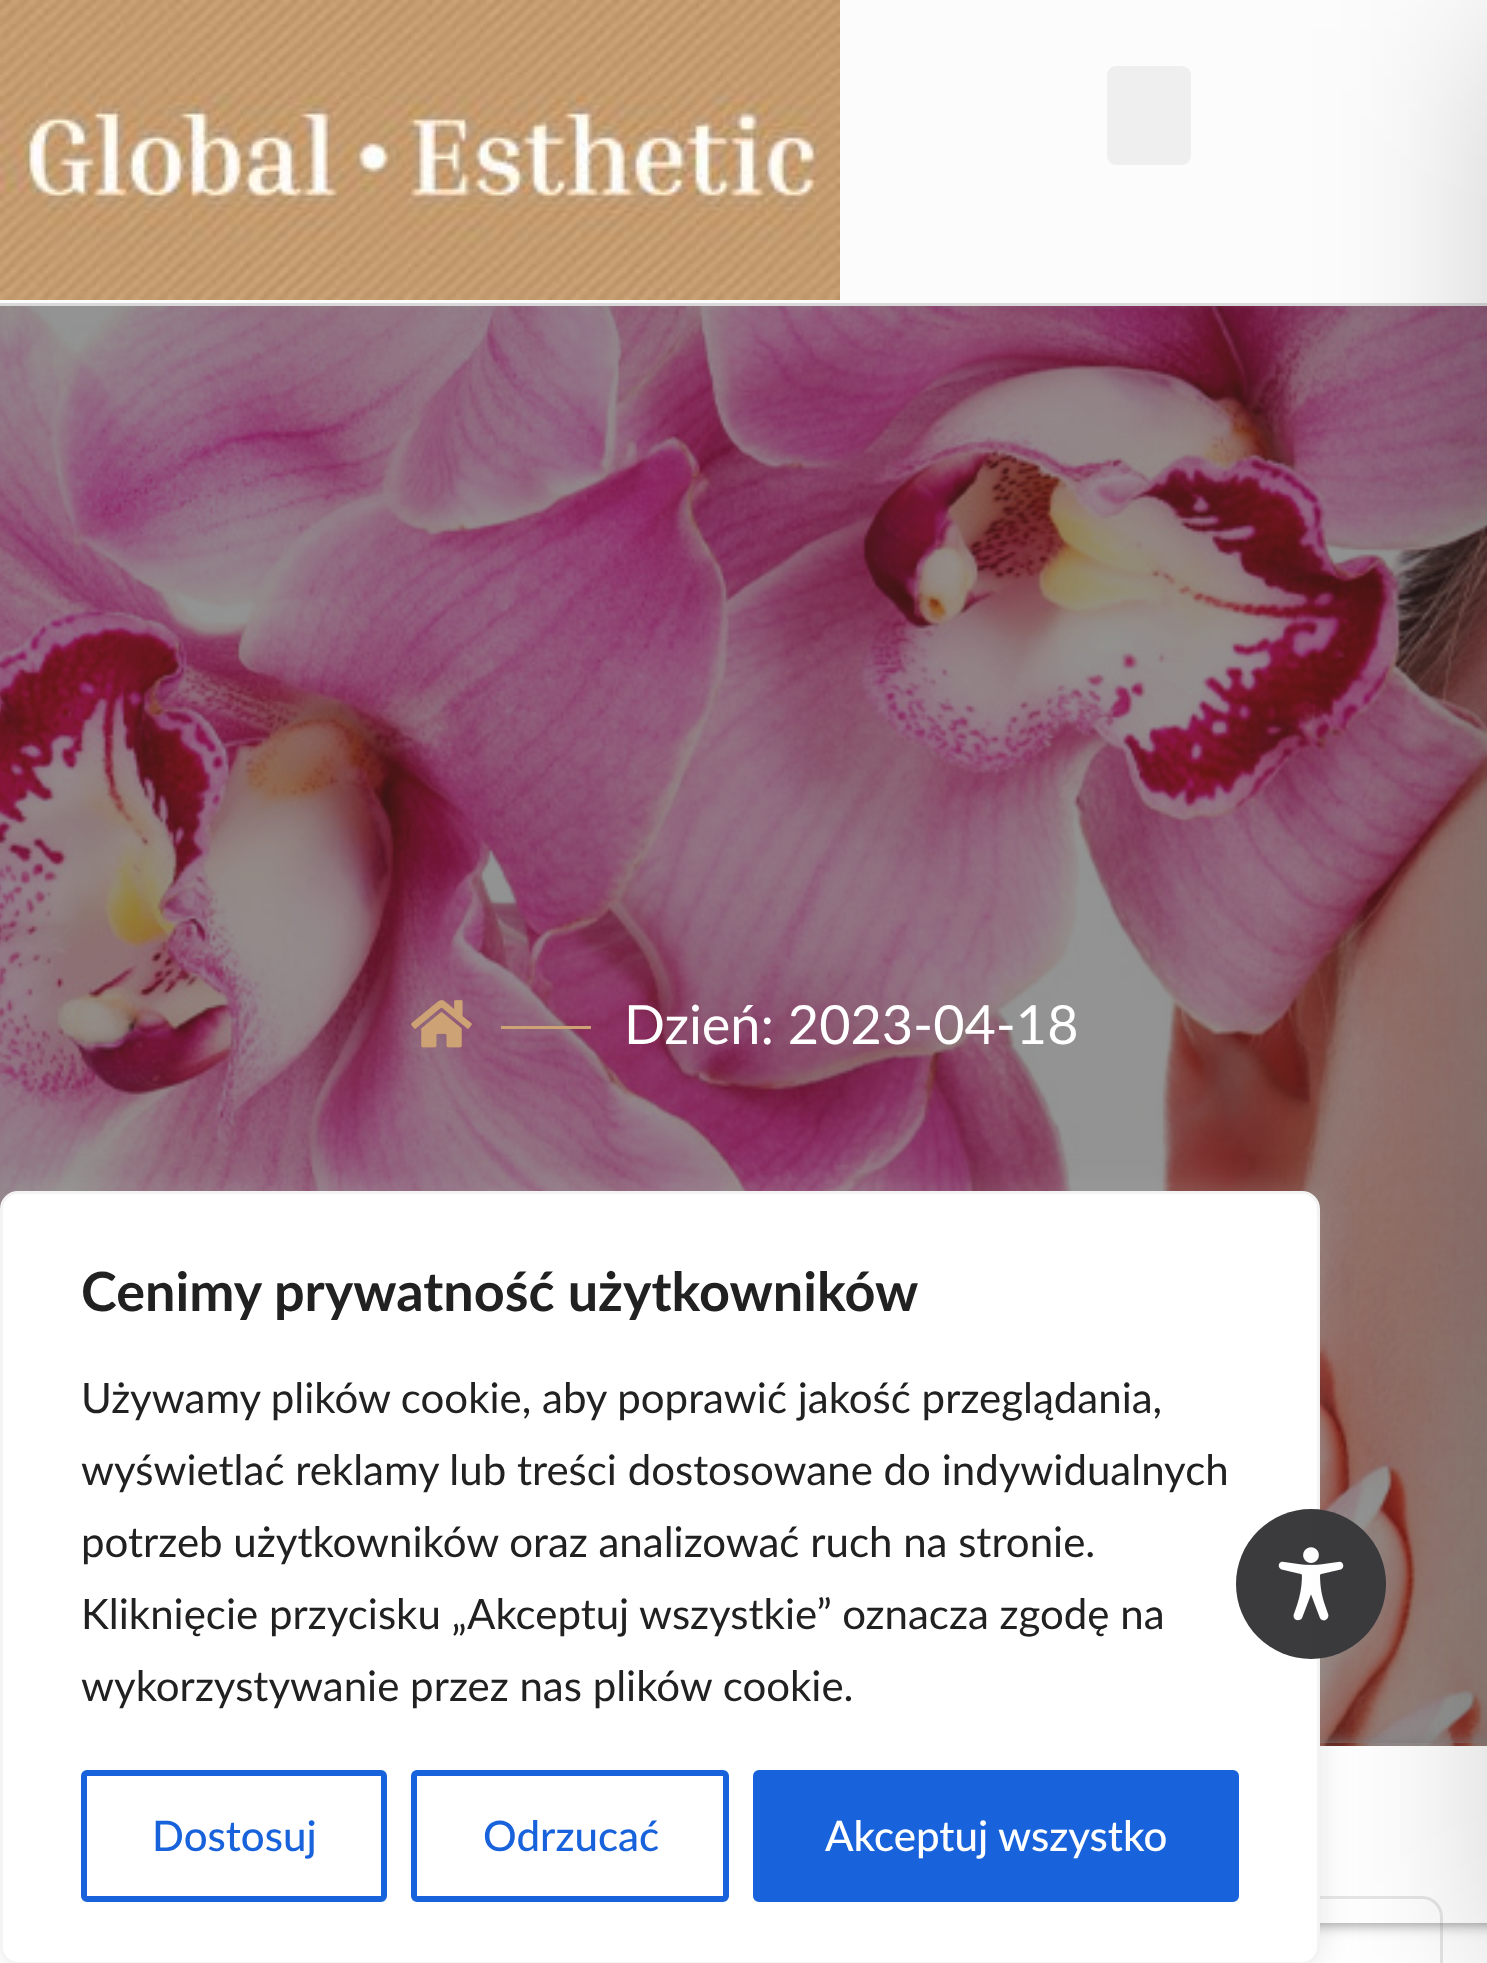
async function draw(canvas) {
  canvas.width = 1487
  canvas.height = 1963
  const ctx = canvas.getContext('2d')
  ctx.miterLimit = 4
  ctx.fontKerning = 'normal'
  async function loadImage(src) {
    const img = new Image()
    img.src = src
    await img.decode()
    return img
  }

  ctx.fillStyle = '#fff'
  ctx.fillRect(0, 0, 1487, 1963)
  ctx.fillStyle = '#fcfcfc'
  ctx.fillRect(0, 0, 1487, 303)
  ctx.fillStyle = '#dad9d9'
  ctx.fillRect(0, 303, 1487, 3)
  ctx.drawImage(await loadImage('image0.png'), 0, 0, 840, 300)
  ctx.fillStyle = '#efefef'
  ctx.beginPath()
  ctx.roundRect(1107, 66, 84, 99, 9)
  ctx.fill()
  ctx.drawImage(await loadImage('image1.png'), 0, 306, 1487, 1440)
  ctx.drawImage(await loadImage('image2.png'), 411, 1000, 61, 48)
  ctx.fillStyle = '#cda274'
  ctx.fillRect(501, 1026, 90, 3)
  ctx.font = '54px Lato'
  ctx.fillStyle = '#fff'
  ctx.fillText('Dzień: 2023-04-18', 624, 1044)
  ctx.beginPath()
  ctx.roundRect(46.5, 1897.5, 1395, 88, 19.5)
  ctx.strokeStyle = '#e6e6e6'
  ctx.lineWidth = 3
  ctx.stroke()
  ctx.fillStyle = '#acabab4d'
  ctx.filter = 'blur(15px)'
  ctx.beginPath()
  ctx.roundRect(0, 1188, 1320, 774, 18)
  ctx.fill()
  ctx.filter = 'none'
  ctx.save()
  ctx.beginPath()
  ctx.moveTo(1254, 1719)
  ctx.lineTo(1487, 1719)
  ctx.lineTo(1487, 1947)
  ctx.lineTo(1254, 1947)
  ctx.closePath()
  ctx.moveTo(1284, 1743)
  ctx.lineTo(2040, 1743)
  ctx.bezierCurveTo(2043.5, 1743, 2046, 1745.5, 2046, 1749)
  ctx.lineTo(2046, 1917)
  ctx.bezierCurveTo(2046, 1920.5, 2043.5, 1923, 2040, 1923)
  ctx.lineTo(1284, 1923)
  ctx.bezierCurveTo(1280.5, 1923, 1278, 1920.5, 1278, 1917)
  ctx.lineTo(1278, 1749)
  ctx.bezierCurveTo(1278, 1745.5, 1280.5, 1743, 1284, 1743)
  ctx.closePath()
  ctx.clip('evenodd')
  ctx.fillStyle = '#808080'
  ctx.filter = 'blur(7.5px)'
  ctx.beginPath()
  ctx.roundRect(1278, 1743, 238, 180, 6)
  ctx.fill()
  ctx.filter = 'none'
  ctx.restore()
  ctx.fillStyle = '#fff'
  ctx.beginPath()
  ctx.roundRect(1.5, 1192.5, 1317, 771, 16.5)
  ctx.fill()
  ctx.strokeStyle = '#f4f4f4'
  ctx.stroke()
  ctx.fillStyle = '#1863dc'
  ctx.beginPath()
  ctx.roundRect(756, 1773, 480, 126, 3)
  ctx.fill()
  ctx.strokeStyle = '#1863dc'
  ctx.lineWidth = 6
  ctx.stroke()
  ctx.fillStyle = '#3b3a3d'
  ctx.beginPath()
  ctx.arc(1311, 1584, 75, 0, 2 * Math.PI)
  ctx.fill()
  ctx.drawImage(await loadImage('image3.png'), 1278, 1547, 66, 74)
  ctx.fillStyle = '#00000033'
  ctx.filter = 'blur(90px)'
  ctx.beginPath()
  ctx.rect(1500, 30, 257, 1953)
  ctx.fill()
  ctx.filter = 'none'
  ctx.font = 'bold 54px Lato'
  ctx.fillStyle = '#212121'
  ctx.fillText('Cenimy prywatność użytkowników', 81, 1311)
  ctx.font = '42px Lato'
  ctx.fillText('Używamy plików cookie, aby poprawić jakość przeglądania,', 81, 1413)
  ctx.fillText('wyświetlać reklamy lub treści dostosowane do indywidualnych', 81, 1485)
  ctx.fillText('potrzeb użytkowników oraz analizować ruch na stronie.', 81, 1557)
  ctx.fillText('Kliknięcie przycisku „Akceptuj wszystkie” oznacza zgodę na', 81, 1629)
  ctx.fillText('wykorzystywanie przez nas plików cookie.', 81, 1701)
  ctx.beginPath()
  ctx.roundRect(84, 1773, 300, 126, 3)
  ctx.stroke()
  ctx.font = '500 42px Lato'
  ctx.fillStyle = '#1863dc'
  ctx.fillText('Dostosuj', 152, 1851)
  ctx.beginPath()
  ctx.roundRect(414, 1773, 312, 126, 3)
  ctx.stroke()
  ctx.fillText('Odrzucać', 483, 1851)
  ctx.fillStyle = '#fff'
  ctx.fillText('Akceptuj wszystko', 825, 1851)
}

draw(document.querySelector('canvas'))
